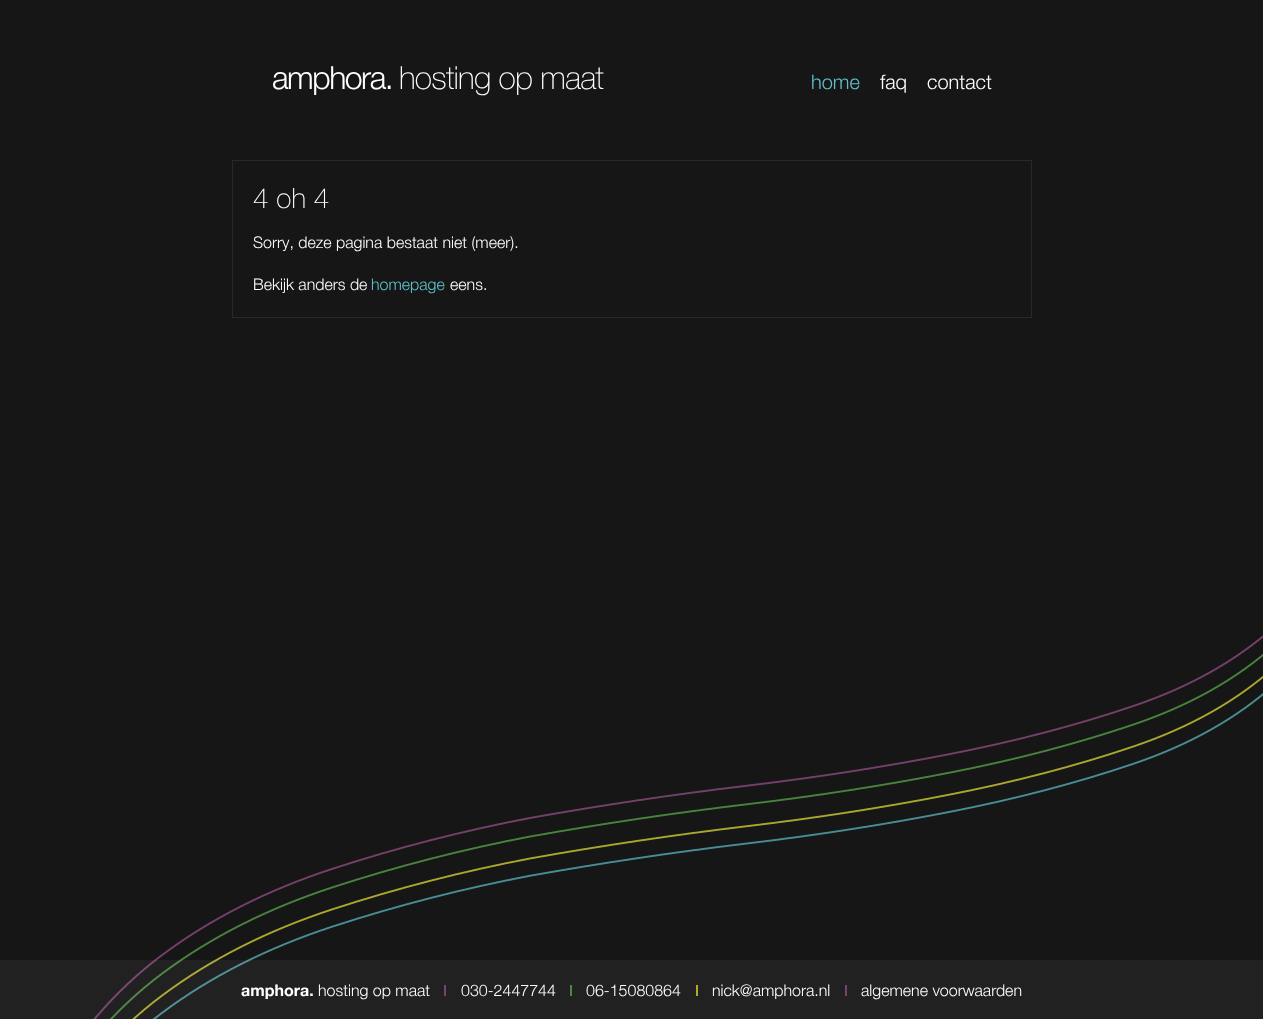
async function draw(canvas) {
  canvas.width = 1263
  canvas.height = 1019
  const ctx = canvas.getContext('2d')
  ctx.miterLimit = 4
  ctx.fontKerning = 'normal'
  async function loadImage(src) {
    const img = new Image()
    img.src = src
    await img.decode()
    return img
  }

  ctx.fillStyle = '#161616'
  ctx.fillRect(0, 0, 1263, 1019)
  ctx.letterSpacing = '-1.5px'
  ctx.font = '300 32px Helvetica'
  ctx.fillStyle = '#fff'
  ctx.fillText('amphora.', 272, 89)
  ctx.letterSpacing = '-0.75px'
  ctx.font = '100 32px Helvetica'
  ctx.fillText('hosting op maat', 399, 89)
  ctx.letterSpacing = '0px'
  ctx.font = '300 20px Helvetica'
  ctx.fillStyle = '#60c1cb'
  ctx.fillText('home', 811, 89)
  ctx.fillStyle = '#fff'
  ctx.fillText('faq', 880, 89)
  ctx.fillText('contact', 927, 89)
  ctx.strokeStyle = '#292929'
  ctx.strokeRect(232.5, 160.5, 799, 157)
  ctx.font = '100 28px Helvetica'
  ctx.fillText('4 oh 4', 253, 208)
  ctx.font = '300 16px Helvetica'
  ctx.fillText('Sorry, deze pagina bestaat niet (meer).', 253, 248)
  ctx.fillText('Bekijk anders de', 253, 290)
  ctx.fillStyle = '#60c1cb'
  ctx.fillText('homepage', 371, 290)
  ctx.fillStyle = '#fff'
  ctx.fillText('eens.', 450, 290)
  ctx.drawImage(await loadImage('image0.png'), 93, 635, 1170, 384)
  ctx.fillStyle = '#ffffff0d'
  ctx.fillRect(0, 960, 1263, 59)
  ctx.font = 'bold 16px Helvetica'
  ctx.fillStyle = '#fff'
  ctx.fillText('amphora.', 241, 996)
  ctx.font = '300 16px Helvetica'
  ctx.fillText('hosting op maat', 318, 996)
  ctx.fillStyle = '#79436f'
  ctx.fillRect(444, 985, 2, 11)
  ctx.fillStyle = '#fff'
  ctx.fillText('030-2447744', 461, 996)
  ctx.fillStyle = '#4d8742'
  ctx.fillRect(570, 985, 2, 11)
  ctx.fillStyle = '#fff'
  ctx.fillText('06-15080864', 586, 996)
  ctx.fillStyle = '#afab32'
  ctx.fillRect(696, 985, 2, 11)
  ctx.fillStyle = '#fff'
  ctx.fillText('nick@amphora.nl', 712, 996)
  ctx.fillStyle = '#79436f'
  ctx.fillRect(845, 985, 2, 11)
  ctx.fillStyle = '#fff'
  ctx.fillText('algemene voorwaarden', 861, 996)
}

draw(document.querySelector('canvas'))
